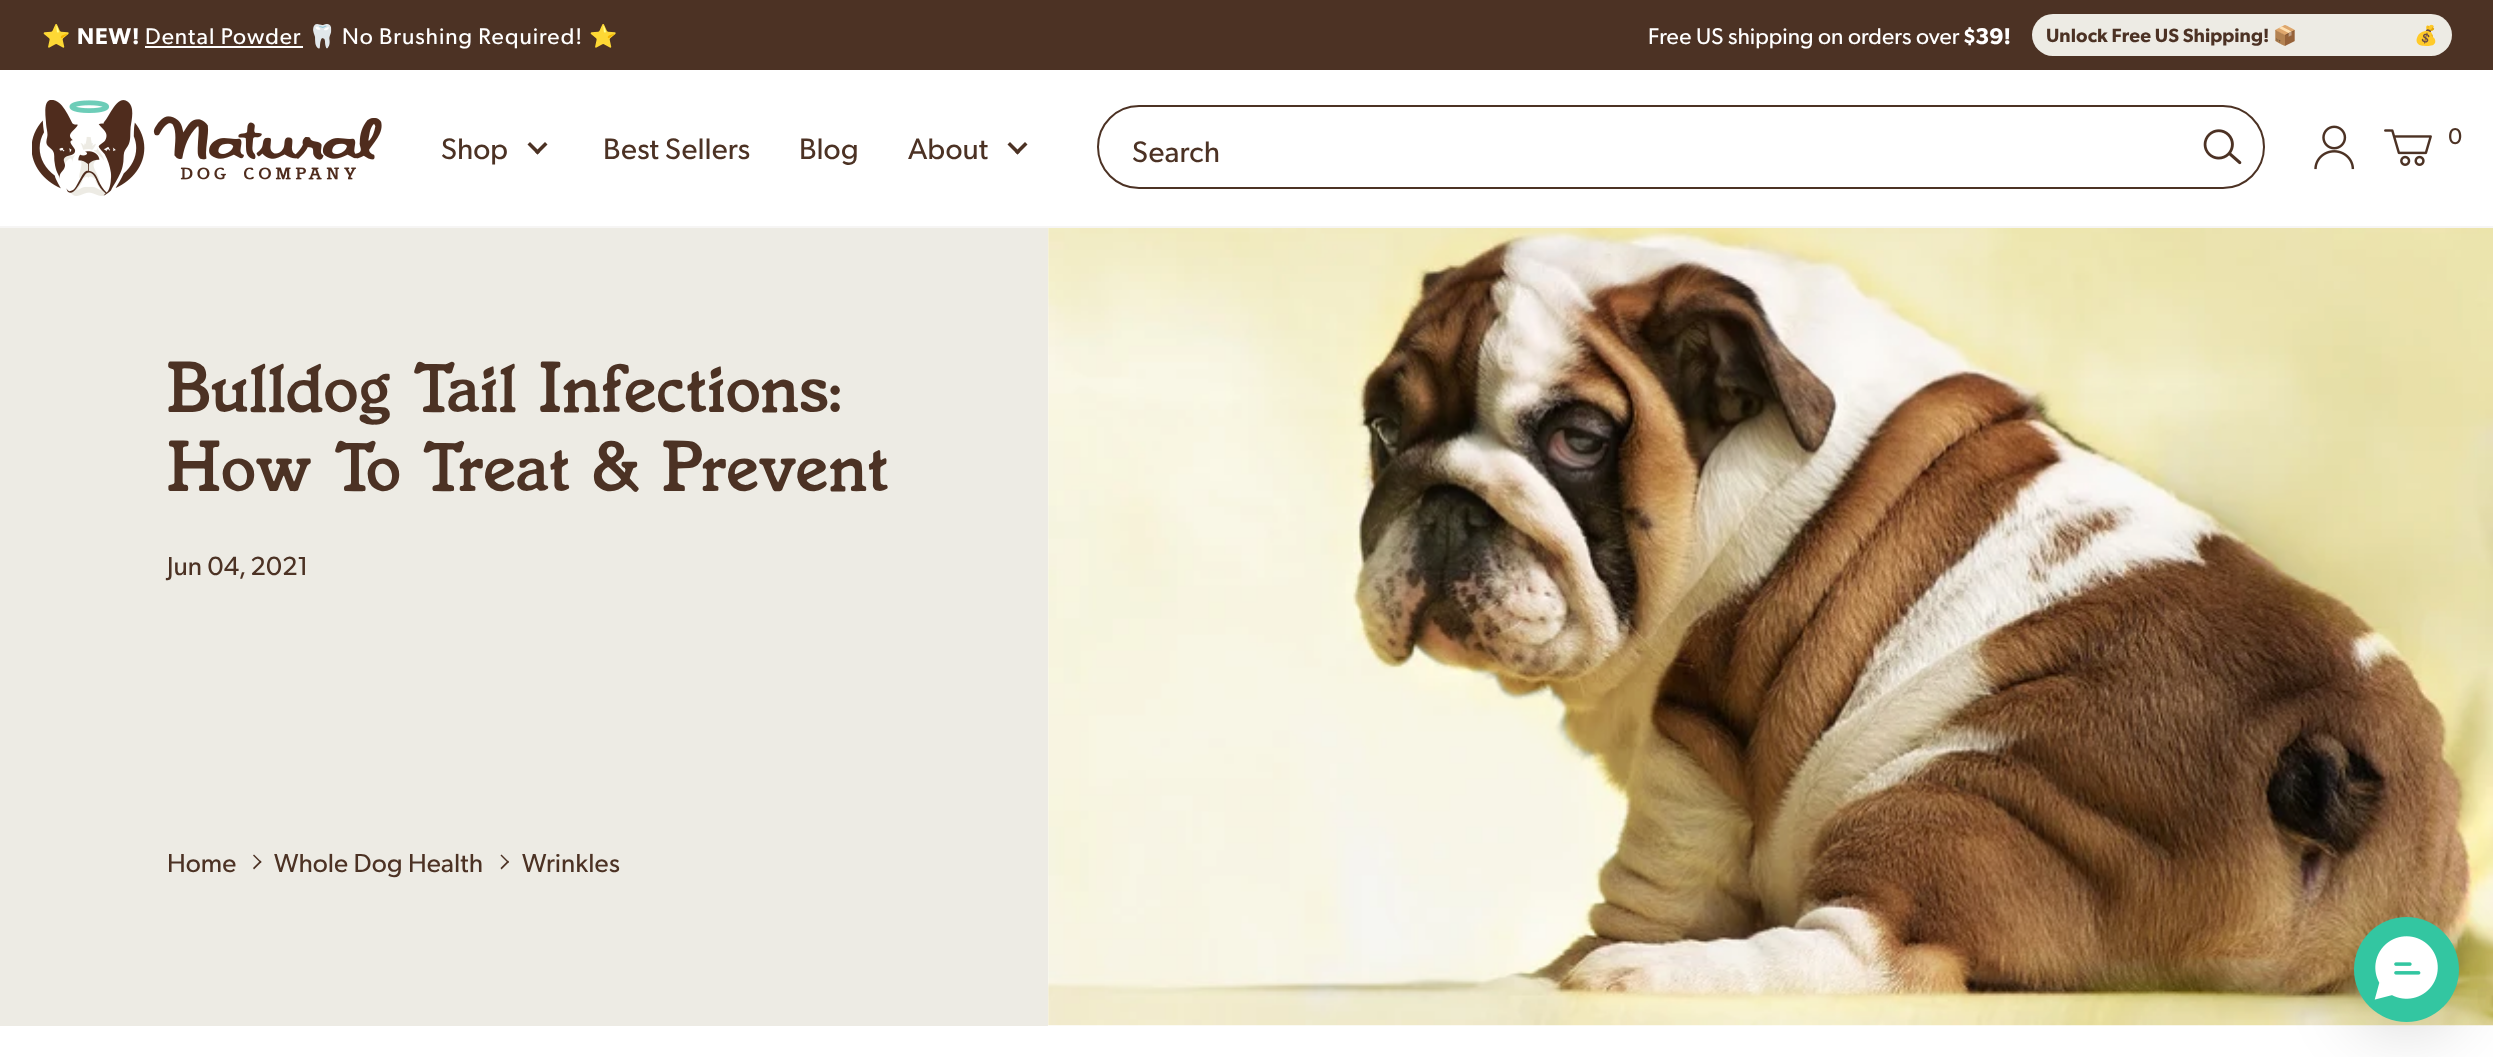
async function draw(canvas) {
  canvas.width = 2493
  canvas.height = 1057
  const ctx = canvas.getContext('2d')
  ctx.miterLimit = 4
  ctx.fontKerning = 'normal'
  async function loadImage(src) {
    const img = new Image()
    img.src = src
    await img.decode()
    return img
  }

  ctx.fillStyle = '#fff'
  ctx.fillRect(0, 0, 2493, 1057)
  ctx.fillStyle = '#4c3224'
  ctx.fillRect(0, 0, 2493, 70)
  ctx.letterSpacing = '0.9px'
  ctx.font = '22.75px Noto Color Emoji'
  ctx.fillStyle = '#fff'
  ctx.fillText('⭐', 42, 44)
  ctx.font = '600 22.75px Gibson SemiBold'
  ctx.fillText('NEW!', 77, 44)
  ctx.font = '22.75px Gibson'
  ctx.fillText('Dental Powder', 145, 44)
  ctx.fillRect(145, 46, 158, 2)
  ctx.font = '22.75px Noto Color Emoji'
  ctx.fillText('🦷', 308, 44)
  ctx.font = '22.75px Gibson'
  ctx.fillText('No Brushing Required!', 342, 44)
  ctx.font = '22.75px Noto Color Emoji'
  ctx.fillText('⭐', 589, 44)
  ctx.letterSpacing = '0px'
  ctx.font = '22.75px Gibson'
  ctx.fillText('Free US shipping on orders over', 1648, 44)
  ctx.font = '600 22.75px Gibson SemiBold'
  ctx.fillText('$39!', 1964, 44)
  ctx.fillStyle = '#edebe4'
  ctx.beginPath()
  ctx.roundRect(2032, 14, 420, 42, 21)
  ctx.fill()
  ctx.font = '600 19.25px Gibson SemiBold'
  ctx.fillStyle = '#4c3224'
  ctx.fillText('Unlock Free US Shipping!', 2046, 42)
  ctx.font = 'bold 19.25px Noto Color Emoji'
  ctx.fillText('📦', 2273, 42)
  ctx.fillText('💰', 2414, 42)
  ctx.fillStyle = '#f6f5f4'
  ctx.fillRect(0, 226, 2493, 2)
  ctx.drawImage(await loadImage('image0.png'), 32, 100, 350, 96)
  ctx.font = '29.75px Gibson'
  ctx.fillStyle = '#4c3224'
  ctx.fillText('Shop', 441, 159)
  ctx.beginPath()
  ctx.moveTo(545, 142)
  ctx.lineTo(547.5, 144.5)
  ctx.lineTo(537.5, 154.5)
  ctx.lineTo(535, 152)
  ctx.closePath()
  ctx.fill()
  ctx.beginPath()
  ctx.moveTo(530, 142)
  ctx.lineTo(540, 152)
  ctx.lineTo(537.5, 154.5)
  ctx.lineTo(527.5, 144.5)
  ctx.closePath()
  ctx.fill()
  ctx.fillText('Best Sellers', 603, 159)
  ctx.fillText('Blog', 799, 159)
  ctx.fillText('About', 908, 159)
  ctx.beginPath()
  ctx.moveTo(1025, 142)
  ctx.lineTo(1027.5, 144.5)
  ctx.lineTo(1017.5, 154.5)
  ctx.lineTo(1015, 152)
  ctx.closePath()
  ctx.fill()
  ctx.beginPath()
  ctx.moveTo(1010, 142)
  ctx.lineTo(1020, 152)
  ctx.lineTo(1017.5, 154.5)
  ctx.lineTo(1007.5, 144.5)
  ctx.closePath()
  ctx.fill()
  ctx.beginPath()
  ctx.roundRect(1098, 106, 1166, 82, 41)
  ctx.strokeStyle = '#4c3224'
  ctx.lineWidth = 2
  ctx.stroke()
  ctx.fillText('Search', 1132, 162)
  ctx.drawImage(await loadImage('image1.png'), 2203, 129, 39, 36)
  ctx.drawImage(await loadImage('image2.png'), 2314, 125, 41, 45)
  ctx.drawImage(await loadImage('image3.png'), 2384, 129, 48, 37)
  ctx.font = '22.75px Gibson'
  ctx.fillText('0', 2448, 144)
  ctx.fillStyle = '#edebe4'
  ctx.fillRect(0, 228, 1048, 798)
  ctx.wordSpacing = '-9.5px'
  ctx.font = 'italic 100 63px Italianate'
  ctx.fillStyle = '#4c3224'
  ctx.fillText('Bulldog Tail Infections:', 167, 412)
  ctx.fillText('How To Treat & Prevent', 167, 491)
  ctx.wordSpacing = '0px'
  ctx.font = '26.25px Gibson'
  ctx.fillText('Jun 04, 2021', 167, 575)
  ctx.fillText('Home', 167, 872)
  ctx.beginPath()
  ctx.moveTo(253, 855.5)
  ctx.lineTo(254, 854.5)
  ctx.lineTo(261.5, 862)
  ctx.lineTo(260.5, 863)
  ctx.closePath()
  ctx.fill()
  ctx.beginPath()
  ctx.moveTo(253, 868)
  ctx.lineTo(260.5, 860.5)
  ctx.lineTo(261.5, 862)
  ctx.lineTo(254, 869.5)
  ctx.closePath()
  ctx.fill()
  ctx.fillText('Whole Dog Health', 274, 872)
  ctx.beginPath()
  ctx.moveTo(500.5, 855.5)
  ctx.lineTo(501.5, 854.5)
  ctx.lineTo(509, 862)
  ctx.lineTo(508, 863)
  ctx.closePath()
  ctx.fill()
  ctx.beginPath()
  ctx.moveTo(500.5, 868)
  ctx.lineTo(508, 860.5)
  ctx.lineTo(509, 862)
  ctx.lineTo(501.5, 869.5)
  ctx.closePath()
  ctx.fill()
  ctx.fillText('Wrinkles', 522, 872)
  ctx.drawImage(await loadImage('image4.png'), 1048, 228, 1445, 798)
  ctx.fillStyle = '#00000029'
  ctx.filter = 'blur(35px)'
  ctx.beginPath()
  ctx.roundRect(2354, 926, 105, 105, 52.5)
  ctx.fill()
  ctx.filter = 'none'
  ctx.fillStyle = '#33c6a1'
  ctx.beginPath()
  ctx.arc(2406.5, 969.5, 52.5, 0, 2 * Math.PI)
  ctx.fill()
  ctx.drawImage(await loadImage('image5.png'), 2374, 936, 64, 64)
}

draw(document.querySelector('canvas'))
